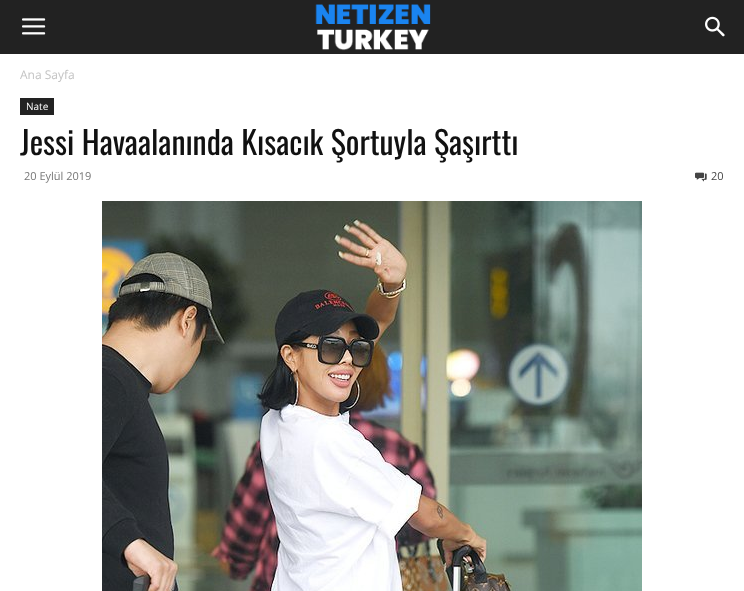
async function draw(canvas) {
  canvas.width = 744
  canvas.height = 591
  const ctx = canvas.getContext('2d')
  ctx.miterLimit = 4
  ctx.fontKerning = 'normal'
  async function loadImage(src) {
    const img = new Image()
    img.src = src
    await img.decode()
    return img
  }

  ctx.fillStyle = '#fff'
  ctx.fillRect(0, 0, 744, 591)
  ctx.fillStyle = '#222'
  ctx.fillRect(0, 0, 744, 54)
  ctx.drawImage(await loadImage('image0.png'), 22, 18, 24, 17)
  ctx.drawImage(await loadImage('image1.png'), 315, 4, 116, 47)
  ctx.drawImage(await loadImage('image2.png'), 705, 16, 20, 21)
  ctx.font = '12px Open Sans'
  ctx.fillStyle = '#c3c3c3'
  ctx.fillText('Ana Sayfa', 20, 79)
  ctx.fillStyle = '#222'
  ctx.fillRect(20, 98, 34, 17)
  ctx.font = '10px Open Sans'
  ctx.fillStyle = '#fff'
  ctx.fillText('Nate', 26, 110)
  ctx.font = '32px Oswald'
  ctx.fillStyle = '#111'
  ctx.fillText('Jessi Havaalanında Kısacık Şortuyla Şaşırttı', 20, 155)
  ctx.font = '11px Open Sans'
  ctx.fillStyle = '#767676'
  ctx.fillText('20 Eylül 2019', 24, 180)
  ctx.drawImage(await loadImage('image3.png'), 695, 172, 12, 10)
  ctx.fillStyle = '#444'
  ctx.fillText('20', 711, 180)
  ctx.drawImage(await loadImage('image4.png'), 102, 201, 540, 390)
}

draw(document.querySelector('canvas'))
